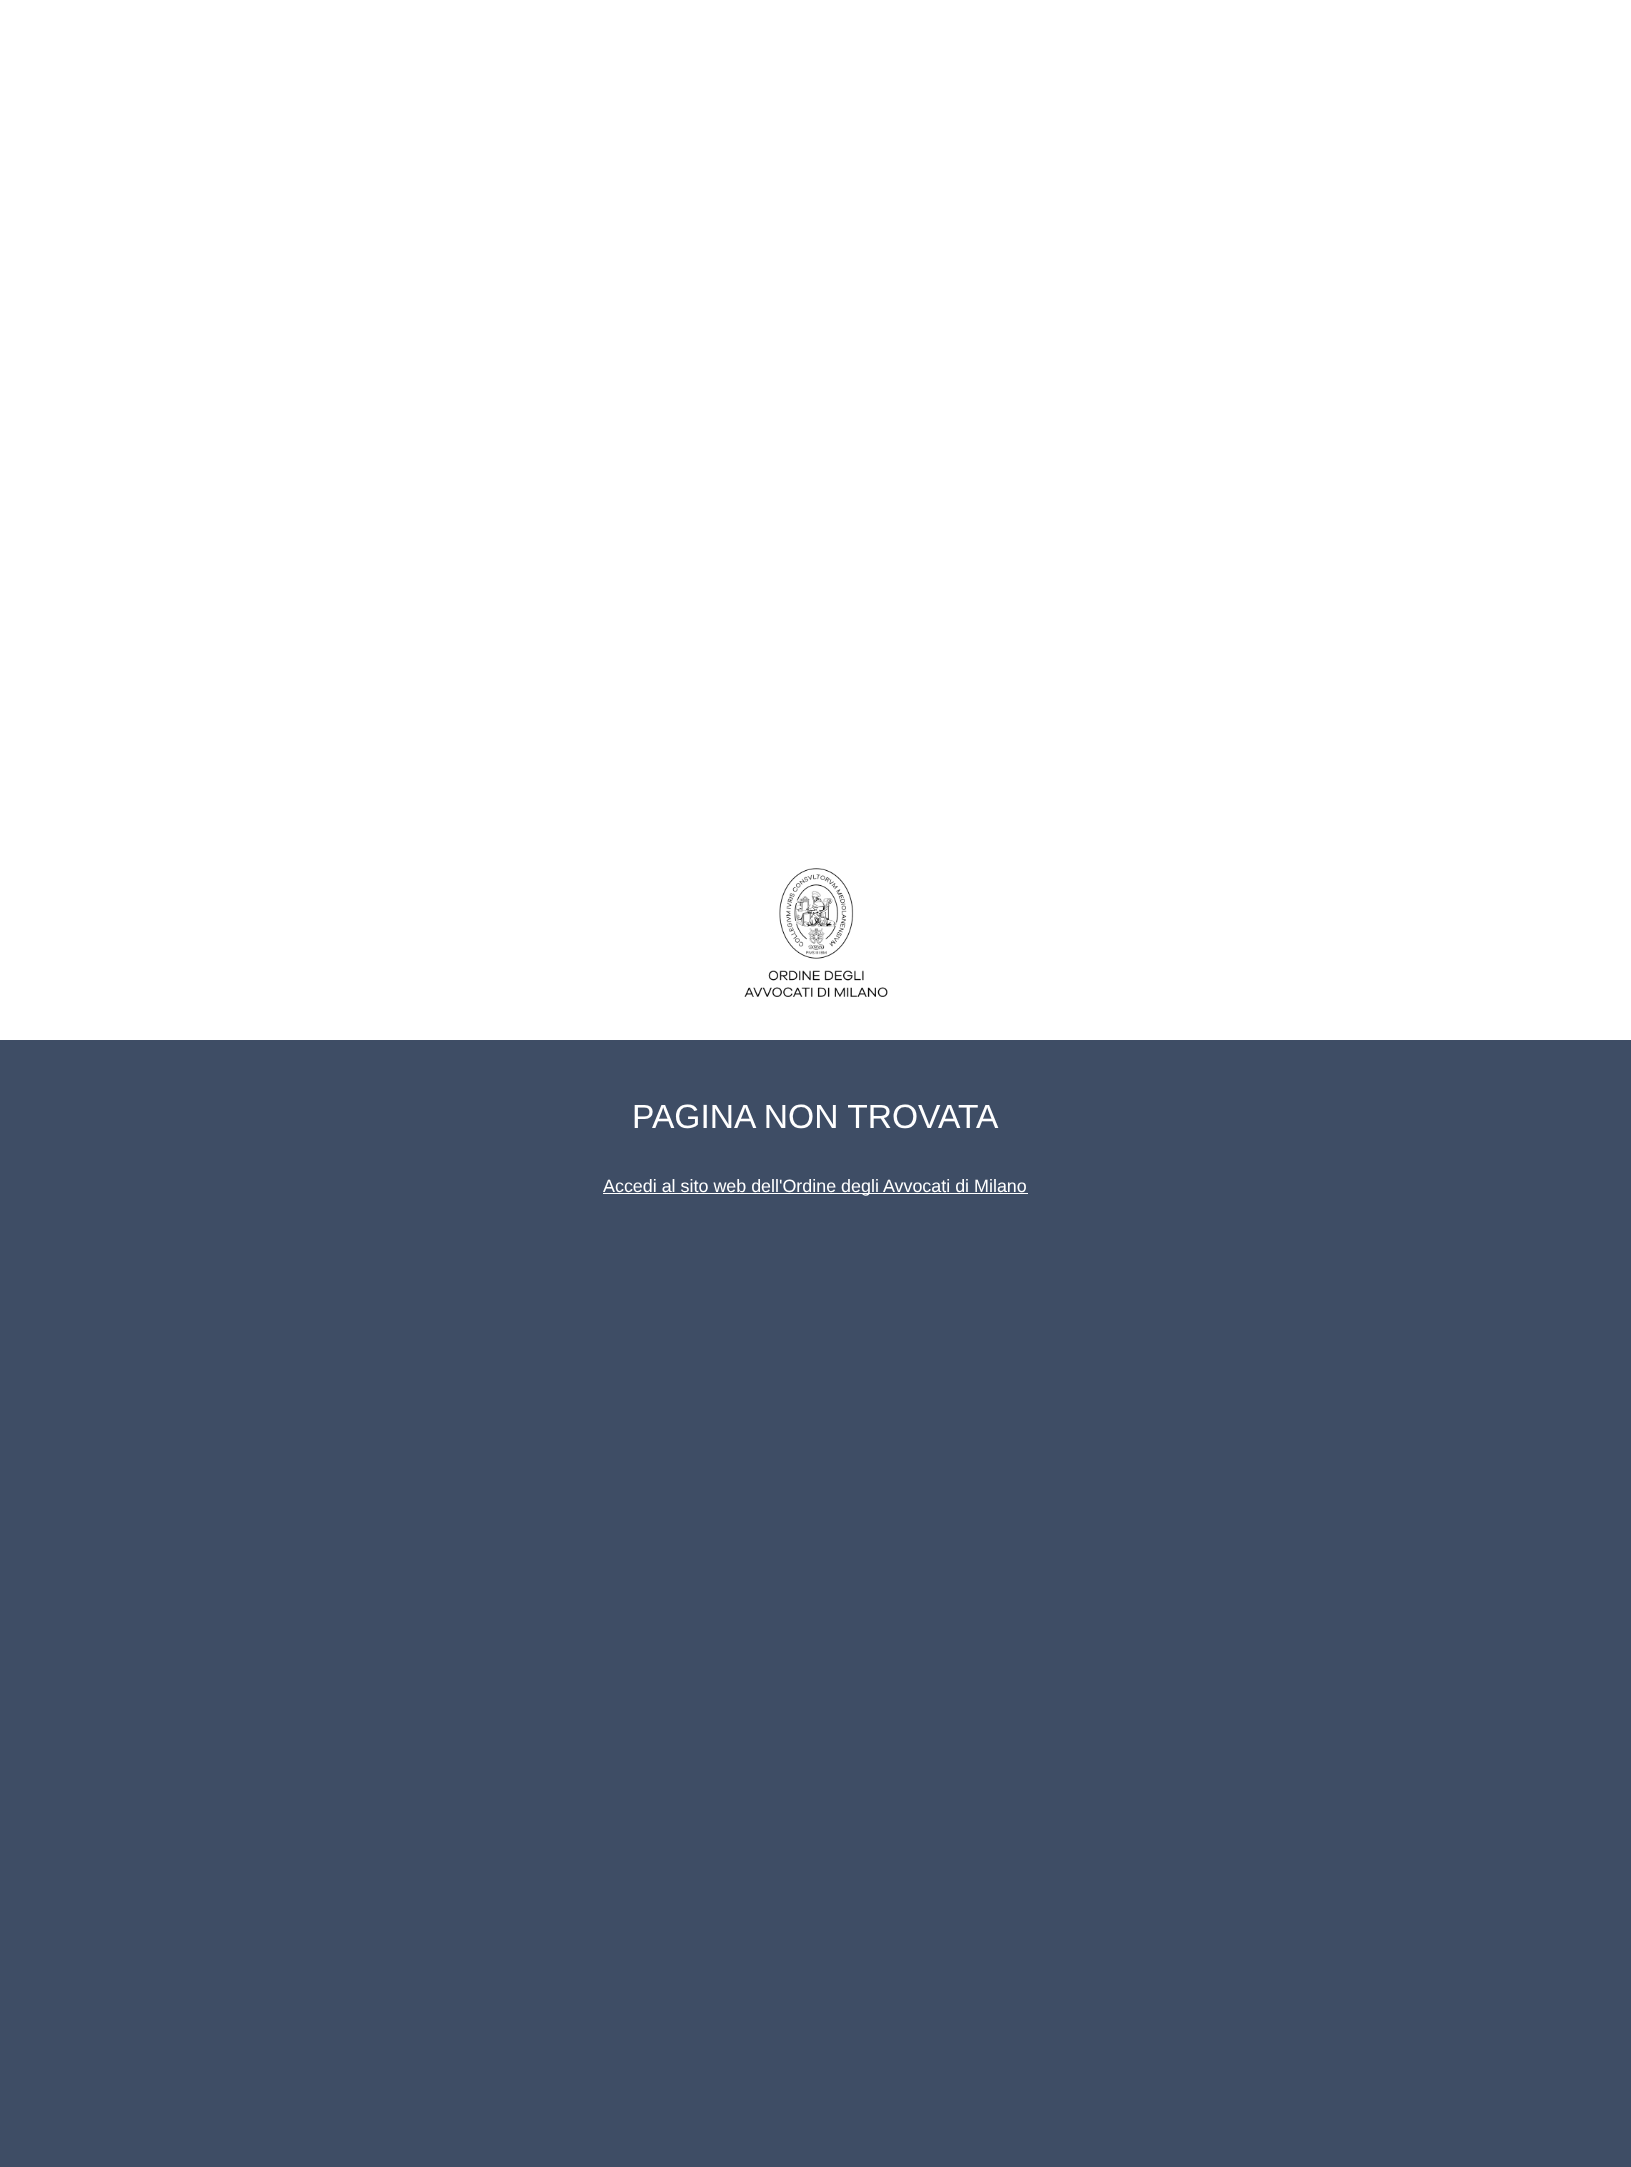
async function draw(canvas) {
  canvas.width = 1631
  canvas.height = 2167
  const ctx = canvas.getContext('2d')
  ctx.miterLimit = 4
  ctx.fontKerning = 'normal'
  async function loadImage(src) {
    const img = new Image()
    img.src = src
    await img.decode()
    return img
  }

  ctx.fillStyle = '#fff'
  ctx.fillRect(0, 0, 1631, 2167)
  ctx.drawImage(await loadImage('image0.png'), 744, 868, 144, 129)
  ctx.fillStyle = '#3e4d65'
  ctx.fillRect(0, 1040, 1631, 1127)
  ctx.font = '33.6px Liberation Sans'
  ctx.fillStyle = '#fff'
  ctx.fillText('PAGINA NON TROVATA', 632, 1128)
  ctx.fillRect(603, 1193, 425, 1)
  ctx.font = '17.9px Liberation Sans'
  ctx.fillText('Accedi al sito web dell\'Ordine degli Avvocati di Milano', 603, 1192)
}

draw(document.querySelector('canvas'))
